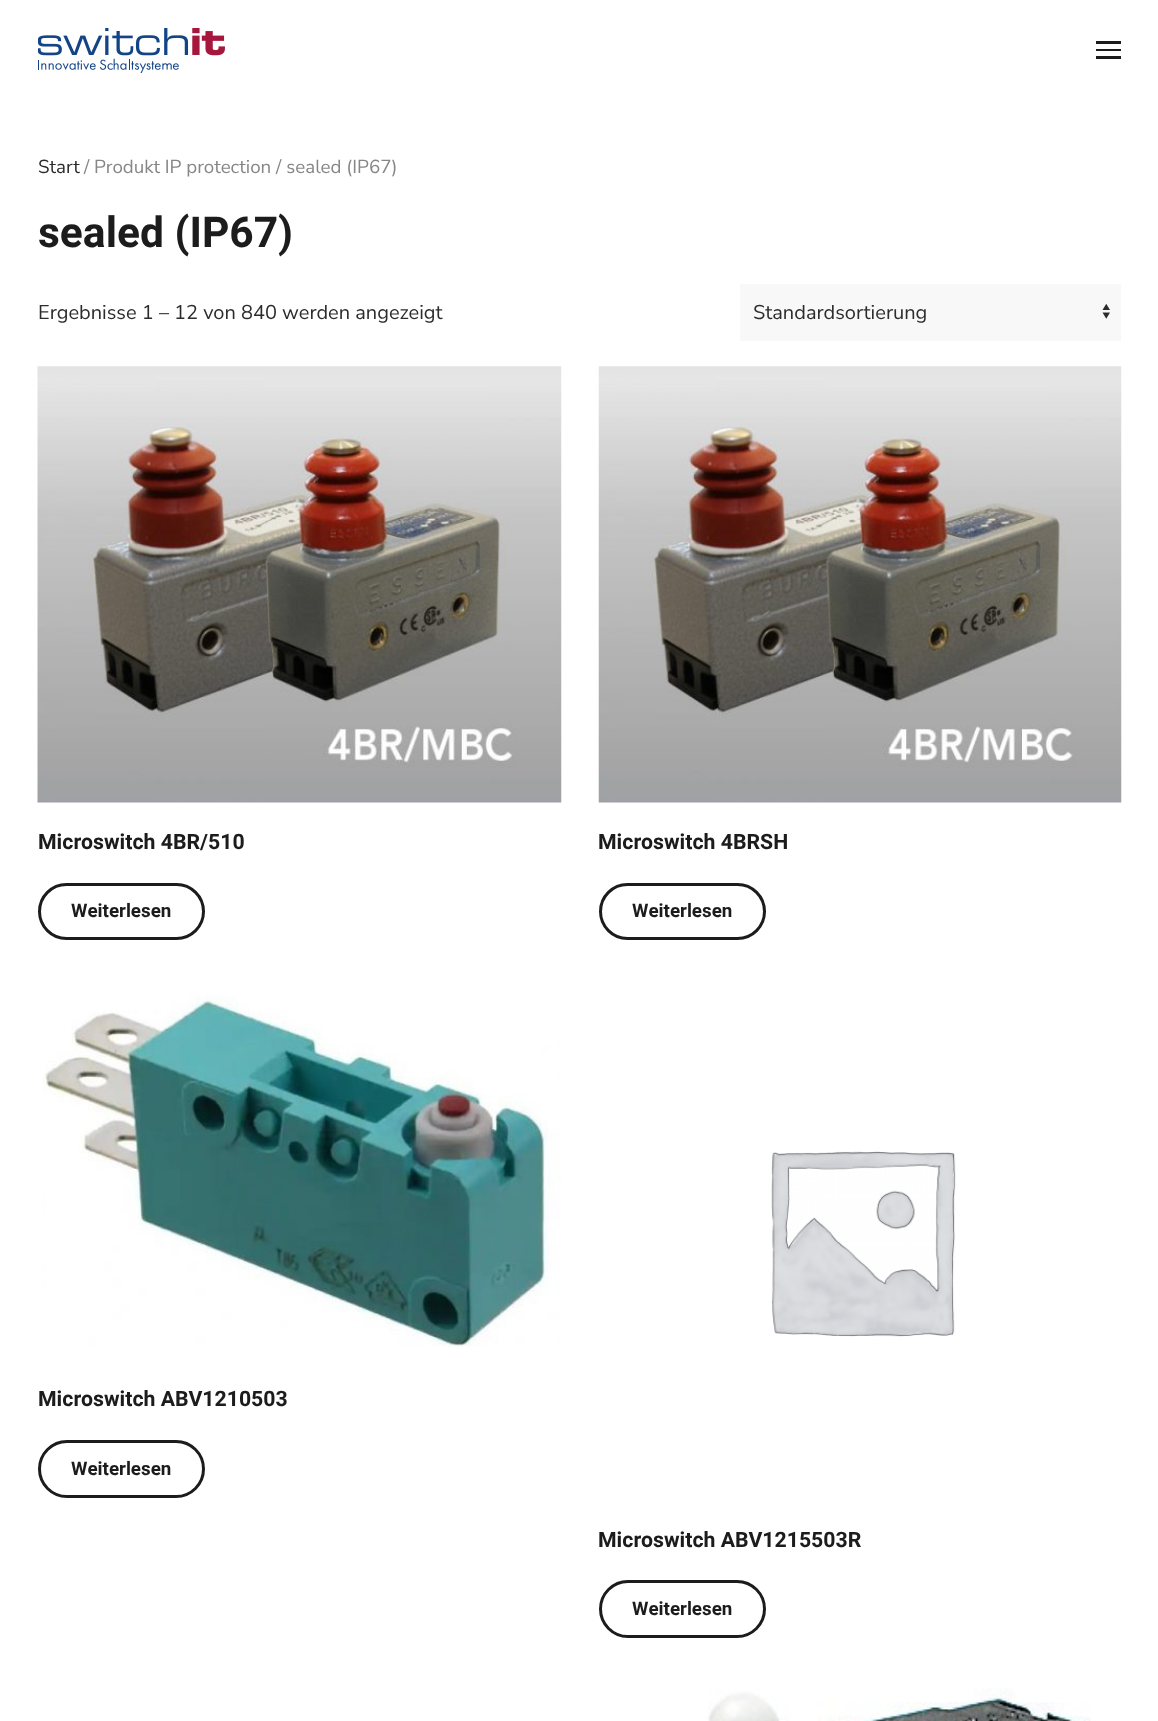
async function draw(canvas) {
  canvas.width = 1158
  canvas.height = 1721
  const ctx = canvas.getContext('2d')
  ctx.miterLimit = 4
  ctx.fontKerning = 'normal'
  async function loadImage(src) {
    const img = new Image()
    img.src = src
    await img.decode()
    return img
  }

  ctx.fillStyle = '#fff'
  ctx.fillRect(0, 0, 1158, 1721)
  ctx.drawImage(await loadImage('image0.png'), 38, 28, 187, 45)
  ctx.fillStyle = '#1c1c1c'
  ctx.fillRect(1096, 41, 25, 3)
  ctx.fillRect(1096, 49, 25, 2)
  ctx.fillRect(1096, 56, 25, 3)
  ctx.font = '200 18.75px Nunito Sans'
  ctx.fillStyle = '#2c2c2c'
  ctx.fillText('Start', 38, 173)
  ctx.fillStyle = '#868686'
  ctx.fillText('/ Produkt IP protection / sealed (IP67)', 84, 173)
  ctx.font = 'bold 42.5px Heebo'
  ctx.fillStyle = '#1c1c1c'
  ctx.fillText('sealed (IP67)', 38, 247)
  ctx.font = '200 20px Nunito Sans'
  ctx.fillStyle = '#2c2c2c'
  ctx.fillText('Ergebnisse 1 – 12 von 840 werden angezeigt', 38, 319)
  ctx.fillStyle = '#f8f8f8'
  ctx.fillRect(740, 284, 381, 57)
  ctx.drawImage(await loadImage('image1.png'), 1102, 303, 8, 16)
  ctx.fillStyle = '#2c2c2c'
  ctx.fillText('Standardsortierung', 753, 319)
  ctx.drawImage(await loadImage('image2.png'), 37, 366, 525, 437)
  ctx.font = 'bold 21.25px Heebo'
  ctx.fillStyle = '#1c1c1c'
  ctx.fillText('Microswitch 4BR/510', 38, 849)
  ctx.beginPath()
  ctx.roundRect(39.5, 884.5, 164, 54, 27)
  ctx.strokeStyle = '#1c1c1c'
  ctx.lineWidth = 3
  ctx.stroke()
  ctx.font = 'bold 18.75px Heebo'
  ctx.fillText('Weiterlesen', 71, 917)
  ctx.drawImage(await loadImage('image3.png'), 598, 366, 524, 437)
  ctx.font = 'bold 21.25px Heebo'
  ctx.fillText('Microswitch 4BRSH', 598, 849)
  ctx.beginPath()
  ctx.roundRect(600.5, 884.5, 164, 54, 27)
  ctx.stroke()
  ctx.font = 'bold 18.75px Heebo'
  ctx.fillText('Weiterlesen', 632, 917)
  ctx.drawImage(await loadImage('image4.png'), 42, 995, 519, 352)
  ctx.font = 'bold 21.25px Heebo'
  ctx.fillText('Microswitch ABV1210503', 38, 1406)
  ctx.beginPath()
  ctx.roundRect(39.5, 1441.5, 164, 55, 27.5)
  ctx.stroke()
  ctx.font = 'bold 18.75px Heebo'
  ctx.fillText('Weiterlesen', 71, 1475)
  ctx.drawImage(await loadImage('image5.png'), 771, 1151, 185, 186)
  ctx.font = 'bold 21.25px Heebo'
  ctx.fillText('Microswitch ABV1215503R', 598, 1547)
  ctx.beginPath()
  ctx.roundRect(600.5, 1581.5, 164, 55, 27.5)
  ctx.stroke()
  ctx.font = 'bold 18.75px Heebo'
  ctx.fillText('Weiterlesen', 632, 1615)
  ctx.drawImage(await loadImage('image6.png'), 708, 1688, 383, 33)
}

draw(document.querySelector('canvas'))
